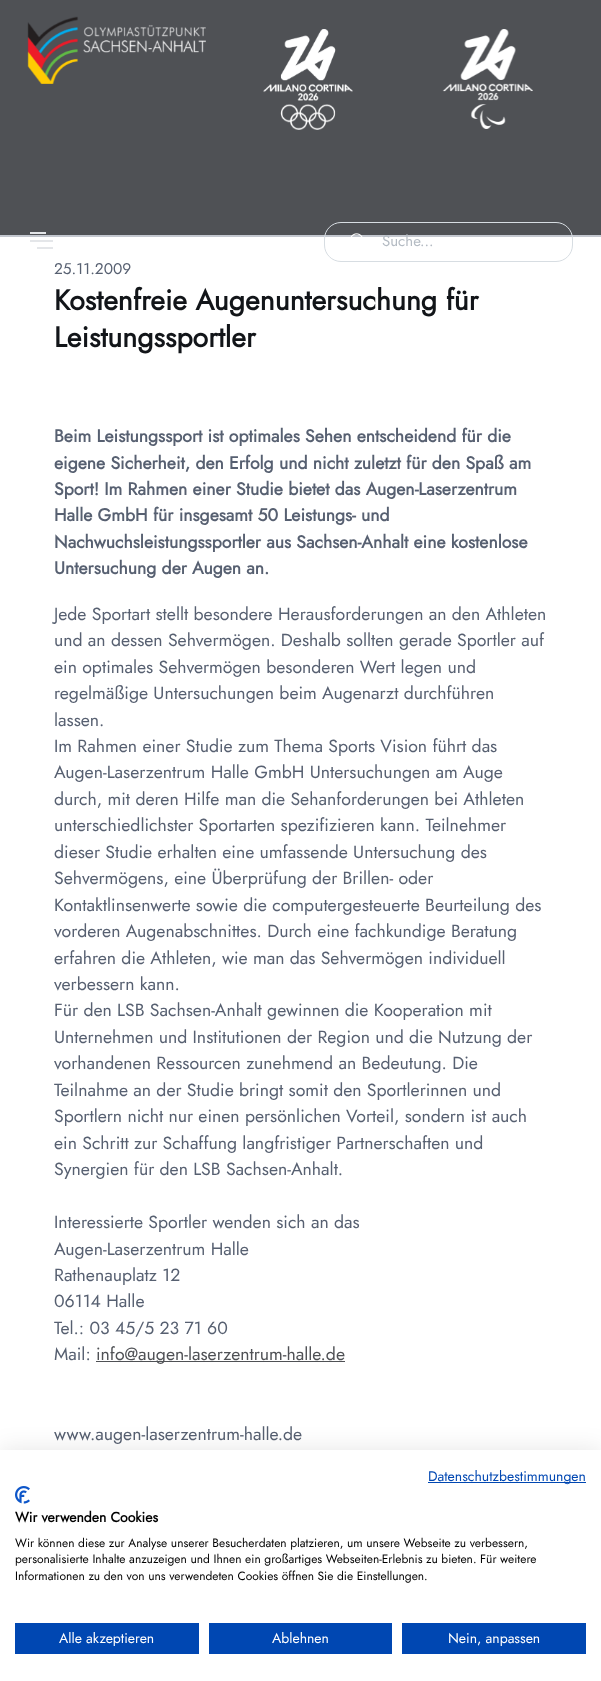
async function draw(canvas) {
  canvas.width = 601
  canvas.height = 1681
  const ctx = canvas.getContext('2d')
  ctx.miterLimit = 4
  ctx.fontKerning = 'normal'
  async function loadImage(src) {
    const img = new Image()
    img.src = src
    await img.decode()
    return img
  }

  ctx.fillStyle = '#fff'
  ctx.fillRect(0, 0, 601, 1681)
  ctx.fillStyle = '#4f5155'
  ctx.fillRect(0, 0, 601, 235)
  ctx.fillStyle = '#c3c7cf'
  ctx.fillRect(0, 235, 601, 2)
  ctx.drawImage(await loadImage('image0.png'), 27, 16, 179, 68)
  ctx.drawImage(await loadImage('image1.png'), 263, 29, 90, 101)
  ctx.drawImage(await loadImage('image2.png'), 442, 29, 91, 100)
  ctx.fillStyle = '#e4e6e9'
  ctx.fillRect(30, 240, 23, 2)
  ctx.fillRect(30, 232, 16, 2)
  ctx.fillRect(37, 247, 16, 2)
  ctx.beginPath()
  ctx.roundRect(324.5, 222.5, 248, 39, 16.5)
  ctx.strokeStyle = '#d7dde2'
  ctx.stroke()
  ctx.drawImage(await loadImage('image3.png'), 350, 233, 13, 4)
  ctx.font = '15px Jost'
  ctx.fillStyle = '#b4bbc3'
  ctx.fillText('Suche...', 382, 246)
  ctx.font = '15.5px Jost'
  ctx.fillStyle = '#576071'
  ctx.fillText('25.11.2009', 54, 274)
  ctx.font = 'bold 28.5px Jost'
  ctx.fillStyle = '#121519'
  ctx.fillText('Kostenfreie Augenuntersuchung für', 54, 310)
  ctx.fillText('Leistungssportler', 54, 347)
  ctx.font = 'bold 17.65px Jost'
  ctx.fillStyle = '#576071'
  ctx.fillText('Beim Leistungssport ist optimales Sehen entscheidend für die', 54, 442)
  ctx.fillText('eigene Sicherheit, den Erfolg und nicht zuletzt für den Spaß am', 54, 469)
  ctx.fillText('Sport! Im Rahmen einer Studie bietet das Augen-Laserzentrum', 54, 495)
  ctx.fillText('Halle GmbH für insgesamt 50 Leistungs- und', 54, 521)
  ctx.fillText('Nachwuchsleistungssportler aus Sachsen-Anhalt eine kostenlose', 54, 548)
  ctx.fillText('Untersuchung der Augen an.', 54, 574)
  ctx.font = '17.65px Jost'
  ctx.fillText('Jede Sportart stellt besondere Herausforderungen an den Athleten', 54, 620)
  ctx.fillText('und an dessen Sehvermögen. Deshalb sollten gerade Sportler auf', 54, 646)
  ctx.fillText('ein optimales Sehvermögen besonderen Wert legen und', 54, 673)
  ctx.fillText('regelmäßige Untersuchungen beim Augenarzt durchführen', 54, 699)
  ctx.fillText('lassen.', 54, 726)
  ctx.fillText('Im Rahmen einer Studie zum Thema Sports Vision führt das', 54, 752)
  ctx.fillText('Augen-Laserzentrum Halle GmbH Untersuchungen am Auge', 54, 778)
  ctx.fillText('durch, mit deren Hilfe man die Sehanforderungen bei Athleten', 54, 805)
  ctx.fillText('unterschiedlichster Sportarten spezifizieren kann. Teilnehmer', 54, 831)
  ctx.fillText('dieser Studie erhalten eine umfassende Untersuchung des', 54, 858)
  ctx.fillText('Sehvermögens, eine Überprüfung der Brillen- oder', 54, 884)
  ctx.fillText('Kontaktlinsenwerte sowie die computergesteuerte Beurteilung des', 54, 911)
  ctx.fillText('vorderen Augenabschnittes. Durch eine fachkundige Beratung', 54, 937)
  ctx.fillText('erfahren die Athleten, wie man das Sehvermögen individuell', 54, 964)
  ctx.fillText('verbessern kann.', 54, 990)
  ctx.fillText('Für den LSB Sachsen-Anhalt gewinnen die Kooperation mit', 54, 1016)
  ctx.fillText('Unternehmen und Institutionen der Region und die Nutzung der', 54, 1043)
  ctx.fillText('vorhandenen Ressourcen zunehmend an Bedeutung. Die', 54, 1069)
  ctx.fillText('Teilnahme an der Studie bringt somit den Sportlerinnen und', 54, 1096)
  ctx.fillText('Sportlern nicht nur einen persönlichen Vorteil, sondern ist auch', 54, 1122)
  ctx.fillText('ein Schritt zur Schaffung langfristiger Partnerschaften und', 54, 1149)
  ctx.fillText('Synergien für den LSB Sachsen-Anhalt.', 54, 1175)
  ctx.fillText('Interessierte Sportler wenden sich an das', 54, 1228)
  ctx.fillText('Augen-Laserzentrum Halle', 54, 1255)
  ctx.fillText('Rathenauplatz 12', 54, 1281)
  ctx.fillText('06114 Halle', 54, 1307)
  ctx.fillText('Tel.: 03 45/5 23 71 60', 54, 1334)
  ctx.fillText('Mail:', 54, 1360)
  ctx.fillStyle = '#4f5155'
  ctx.fillRect(96, 1361, 249, 1)
  ctx.fillText('info@augen-laserzentrum-halle.de', 96, 1360)
  ctx.fillStyle = '#576071'
  ctx.fillText('www.augen-laserzentrum-halle.de', 54, 1440)
  ctx.fillStyle = '#0000001a'
  ctx.filter = 'blur(12px)'
  ctx.beginPath()
  ctx.rect(0, 1450, 601, 231)
  ctx.fill()
  ctx.filter = 'none'
  ctx.fillStyle = '#fff'
  ctx.fillRect(0, 1450, 601, 231)
  ctx.fillStyle = '#0047b2'
  ctx.fillRect(428, 1482, 158, 1)
  ctx.font = '14px Jost'
  ctx.fillText('Datenschutzbestimmungen', 428, 1481)
  ctx.drawImage(await loadImage('image4.png'), 15, 1486, 15, 18)
  ctx.font = 'bold 14px Jost'
  ctx.fillStyle = '#000'
  ctx.fillText('Wir verwenden Cookies', 15, 1522)
  ctx.font = '12px Jost'
  ctx.fillText('Wir können diese zur Analyse unserer Besucherdaten platzieren, um unsere Webseite zu verbessern,', 15, 1547)
  ctx.fillText('personalisierte Inhalte anzuzeigen und Ihnen ein großartiges Webseiten-Erlebnis zu bieten. Für weitere', 15, 1563)
  ctx.fillText('Informationen zu den von uns verwendeten Cookies öffnen Sie die Einstellungen.', 15, 1580)
  ctx.fillStyle = '#0047b2'
  ctx.fillRect(15, 1623, 184, 31)
  ctx.font = '14px Jost'
  ctx.fillStyle = '#fff'
  ctx.fillText('Alle akzeptieren', 59, 1643)
  ctx.fillStyle = '#0047b2'
  ctx.fillRect(209, 1623, 183, 31)
  ctx.fillStyle = '#fff'
  ctx.fillText('Ablehnen', 272, 1643)
  ctx.fillStyle = '#0047b2'
  ctx.fillRect(402, 1623, 184, 31)
  ctx.fillStyle = '#fff'
  ctx.fillText('Nein, anpassen', 448, 1643)
}

draw(document.querySelector('canvas'))
